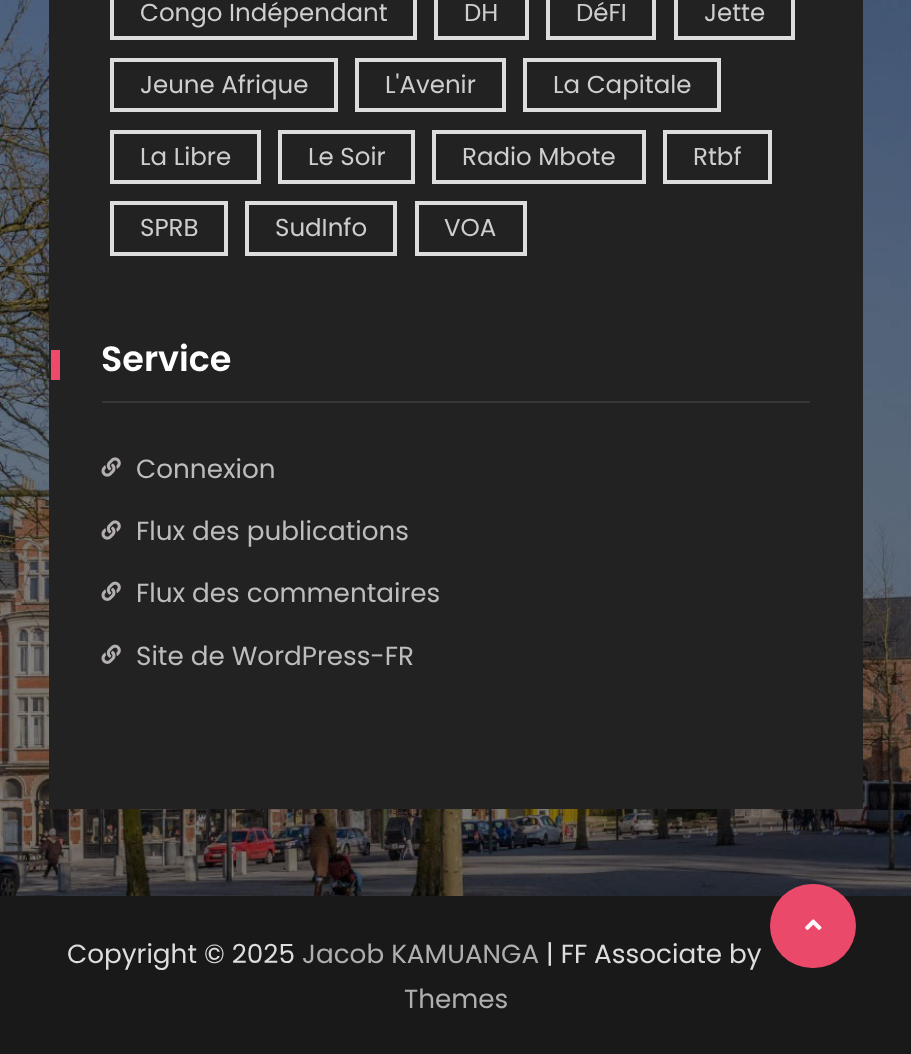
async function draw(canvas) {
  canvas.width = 911
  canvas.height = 1054
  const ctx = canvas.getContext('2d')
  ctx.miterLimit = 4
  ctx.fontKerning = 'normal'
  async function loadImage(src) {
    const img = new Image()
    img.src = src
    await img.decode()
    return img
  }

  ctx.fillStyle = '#fff'
  ctx.fillRect(0, 0, 911, 1054)
  ctx.drawImage(await loadImage('image0.png'), 0, 0, 911, 896)
  ctx.fillStyle = '#222'
  ctx.fillRect(49, 0, 814, 809)
  ctx.strokeStyle = '#ddd'
  ctx.lineWidth = 4
  ctx.strokeRect(112, -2, 303, 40)
  ctx.font = '24.5px Poppins'
  ctx.fillStyle = '#cecece'
  ctx.fillText('Congo Indépendant', 140, 21)
  ctx.strokeRect(436, -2, 91, 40)
  ctx.fillText('DH', 464, 21)
  ctx.strokeRect(548, -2, 106, 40)
  ctx.fillText('DéFI', 576, 21)
  ctx.strokeRect(676, -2, 117, 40)
  ctx.fillText('Jette', 704, 21)
  ctx.strokeRect(112, 60, 224, 50)
  ctx.fillText('Jeune Afrique', 140, 93)
  ctx.strokeRect(357, 60, 147, 50)
  ctx.fillText('L\'Avenir', 385, 93)
  ctx.strokeRect(525, 60, 194, 50)
  ctx.fillText('La Capitale', 553, 93)
  ctx.strokeRect(112, 132, 147, 50)
  ctx.fillText('La Libre', 140, 165)
  ctx.strokeRect(280, 132, 133, 50)
  ctx.fillText('Le Soir', 308, 165)
  ctx.strokeRect(434, 132, 210, 50)
  ctx.fillText('Radio Mbote', 462, 165)
  ctx.strokeRect(665, 132, 105, 50)
  ctx.fillText('Rtbf', 693, 165)
  ctx.strokeRect(112, 203, 114, 51)
  ctx.fillText('SPRB', 140, 236)
  ctx.strokeRect(247, 203, 148, 51)
  ctx.fillText('SudInfo', 275, 236)
  ctx.strokeRect(417, 203, 108, 51)
  ctx.fillText('VOA', 444, 236)
  ctx.fillStyle = '#383838'
  ctx.fillRect(102, 401, 708, 2)
  ctx.fillStyle = '#f04a6b'
  ctx.fillRect(51, 350, 9, 30)
  ctx.font = '600 35px Poppins'
  ctx.fillStyle = '#fff'
  ctx.fillText('Service', 101, 371)
  ctx.drawImage(await loadImage('image1.png'), 101, 457, 20, 20)
  ctx.font = '26.25px Poppins'
  ctx.fillStyle = '#bdbdbd'
  ctx.fillText('Connexion', 136, 478)
  ctx.drawImage(await loadImage('image1.png'), 101, 520, 20, 20)
  ctx.fillText('Flux des publications', 136, 540)
  ctx.drawImage(await loadImage('image2.png'), 101, 581, 20, 20)
  ctx.fillText('Flux des commentaires', 136, 602)
  ctx.drawImage(await loadImage('image2.png'), 101, 644, 20, 20)
  ctx.fillText('Site de WordPress-FR', 136, 665)
  ctx.fillStyle = '#191919'
  ctx.fillRect(0, 896, 911, 158)
  ctx.fillStyle = '#ddd'
  ctx.fillText('Copyright © 2025', 67, 963)
  ctx.fillStyle = '#afafaf'
  ctx.fillText('Jacob KAMUANGA', 302, 963)
  ctx.fillStyle = '#ddd'
  ctx.fillText('| FF Associate by', 546, 963)
  ctx.fillStyle = '#afafaf'
  ctx.fillText('Themes', 404, 1008)
  ctx.fillStyle = '#f04a6bfa'
  ctx.beginPath()
  ctx.roundRect(770, 884, 86, 84, 42)
  ctx.fill()
  ctx.drawImage(await loadImage('image3.png'), 805, 919, 17, 11)
}

draw(document.querySelector('canvas'))
